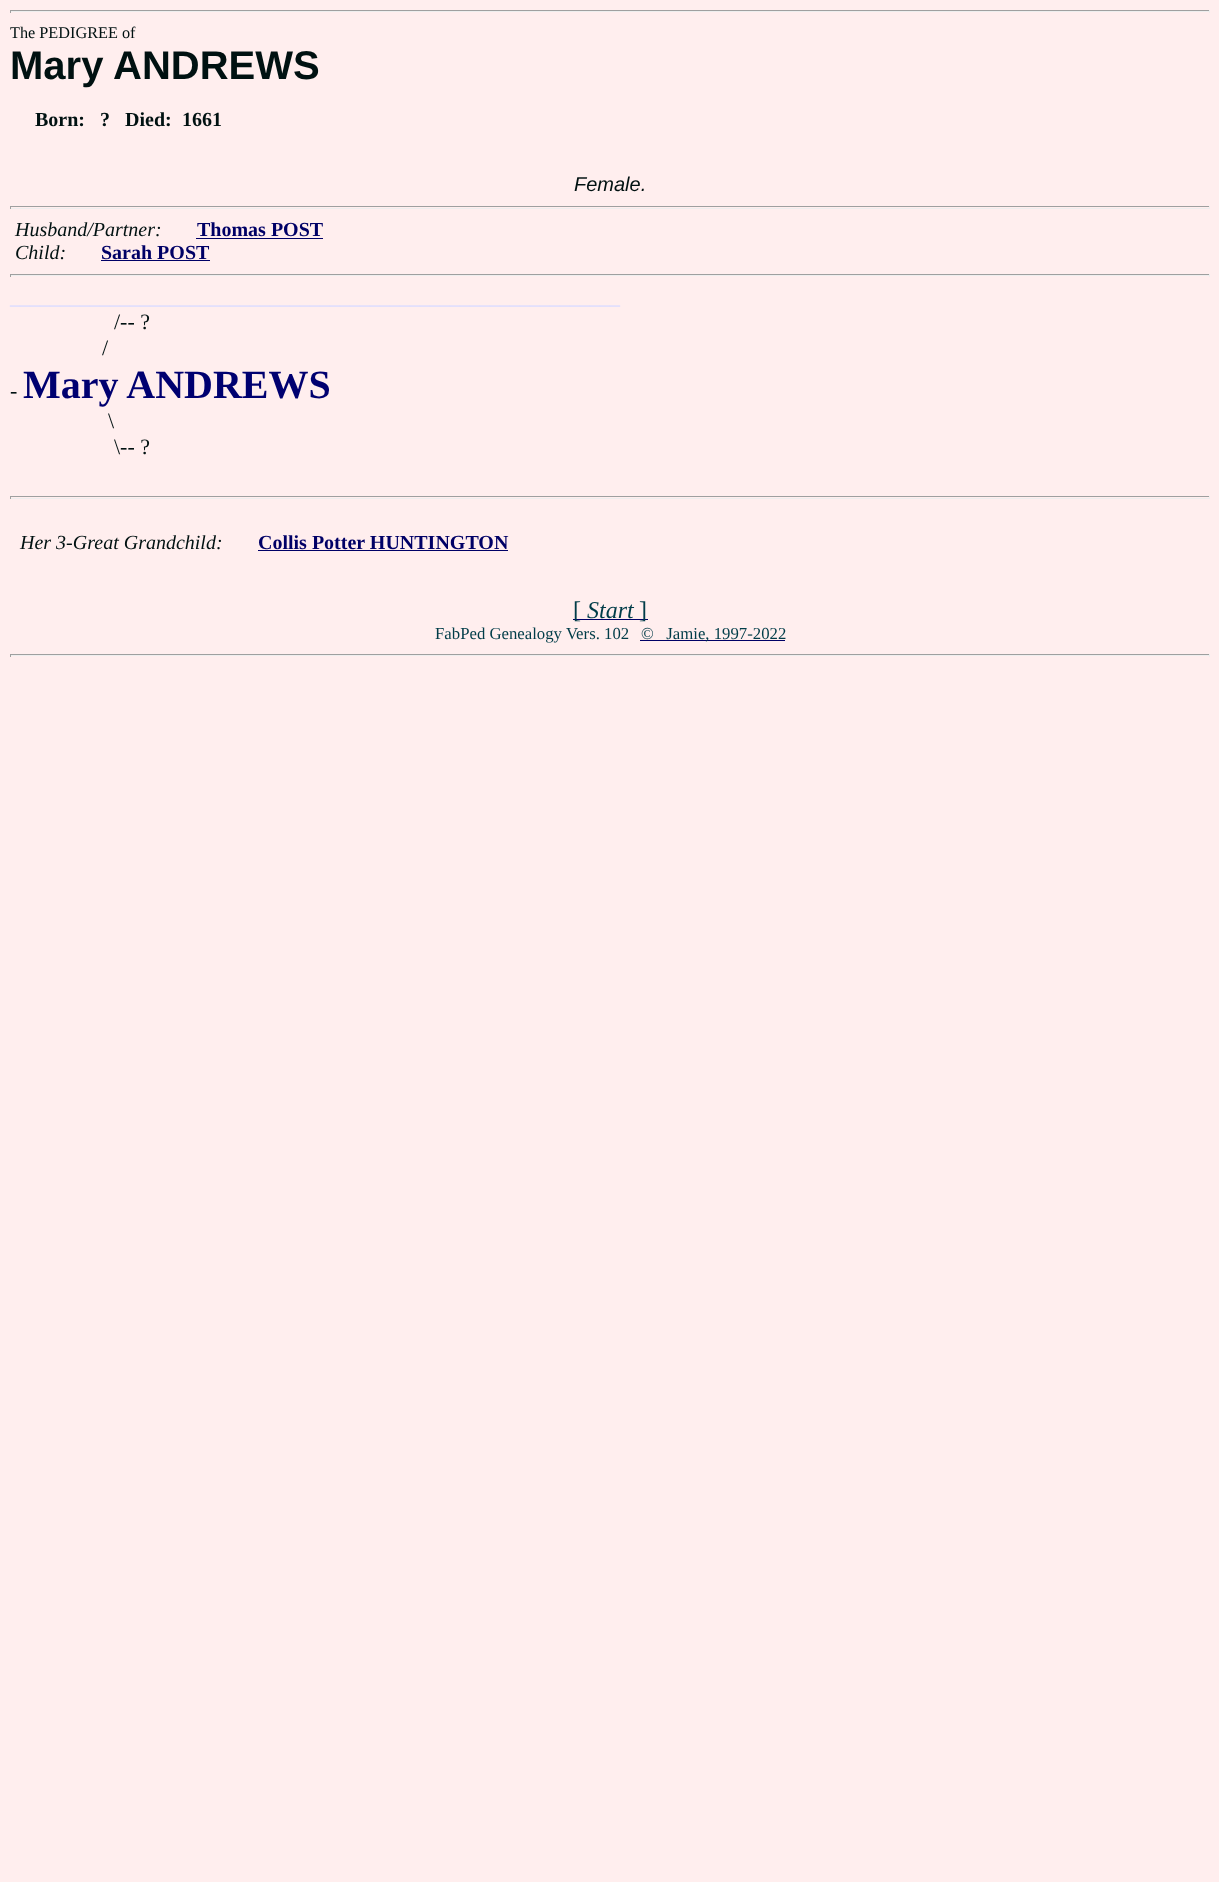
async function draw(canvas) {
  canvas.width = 1219
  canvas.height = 1882
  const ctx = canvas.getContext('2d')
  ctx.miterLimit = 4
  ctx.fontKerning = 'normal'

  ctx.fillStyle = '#fee'
  ctx.fillRect(0, 0, 1219, 1882)
  ctx.fillStyle = '#9f9f9f'
  ctx.fillRect(10, 10, 1200, 1)
  ctx.fillStyle = '#eee'
  ctx.fillRect(1209, 10, 1, 3)
  ctx.fillRect(10, 11, 1200, 1)
  ctx.fillStyle = '#9f9f9f'
  ctx.fillRect(10, 10, 1, 3)
  ctx.font = '16.25px Liberation Serif'
  ctx.fillStyle = '#011'
  ctx.fillText('The PEDIGREE of', 10, 38)
  ctx.font = 'bold 40px Liberation Sans'
  ctx.fillText('Mary ANDREWS', 10, 79)
  ctx.font = 'bold 20px Liberation Serif'
  ctx.fillText('Born:', 35, 126)
  ctx.fillText('?   Died:', 100, 126)
  ctx.fillText('1661', 182, 126)
  ctx.font = 'italic 20px Liberation Sans'
  ctx.fillText('Female.', 574, 191)
  ctx.fillStyle = '#9f9f9f'
  ctx.fillRect(10, 206, 1200, 1)
  ctx.fillStyle = '#eee'
  ctx.fillRect(1209, 206, 1, 3)
  ctx.fillRect(10, 208, 1200, 1)
  ctx.fillStyle = '#9f9f9f'
  ctx.fillRect(10, 206, 1, 3)
  ctx.font = 'italic 20px Liberation Serif'
  ctx.fillStyle = '#011'
  ctx.fillText('Husband/Partner:', 15, 236)
  ctx.font = 'bold 20px Liberation Serif'
  ctx.fillStyle = '#006'
  ctx.fillText('Thomas POST', 197, 236)
  ctx.fillRect(196, 238, 127, 1)
  ctx.font = 'italic 20px Liberation Serif'
  ctx.fillStyle = '#011'
  ctx.fillText('Child:', 15, 259)
  ctx.font = 'bold 20px Liberation Serif'
  ctx.fillStyle = '#006'
  ctx.fillText('Sarah POST', 101, 259)
  ctx.fillRect(101, 260, 109, 1)
  ctx.fillStyle = '#9f9f9f'
  ctx.fillRect(10, 274, 1200, 1)
  ctx.fillStyle = '#eee'
  ctx.fillRect(1209, 274, 1, 3)
  ctx.fillRect(10, 275, 1200, 1)
  ctx.fillStyle = '#9f9f9f'
  ctx.fillRect(10, 274, 1, 3)
  ctx.fillStyle = '#ddf'
  ctx.fillText('_____________________________________________________________', 10, 304)
  ctx.font = '22px Liberation Serif'
  ctx.fillStyle = '#011'
  ctx.fillText('/-- ?', 114, 329)
  ctx.fillText('/', 102, 355)
  ctx.fillText('-', 10, 398)
  ctx.font = 'bold 40px Liberation Serif'
  ctx.fillStyle = '#000070'
  ctx.fillText('Mary ANDREWS', 23, 398)
  ctx.font = '22px Liberation Serif'
  ctx.fillStyle = '#011'
  ctx.fillText('\\', 108, 428)
  ctx.fillText('\\-- ?', 114, 454)
  ctx.fillStyle = '#9f9f9f'
  ctx.fillRect(10, 496, 1200, 1)
  ctx.fillStyle = '#eee'
  ctx.fillRect(1209, 496, 1, 3)
  ctx.fillRect(10, 498, 1200, 1)
  ctx.fillStyle = '#9f9f9f'
  ctx.fillRect(10, 496, 1, 3)
  ctx.font = 'italic 20px Liberation Serif'
  ctx.fillStyle = '#011'
  ctx.fillText('Her 3-Great Grandchild:', 20, 549)
  ctx.font = 'bold 20px Liberation Serif'
  ctx.fillStyle = '#006'
  ctx.fillText('Collis Potter HUNTINGTON', 258, 549)
  ctx.fillRect(258, 550, 250, 1)
  ctx.fillRect(573, 619, 75, 1)
  ctx.font = '24px Liberation Serif'
  ctx.fillStyle = '#003c48'
  ctx.fillText('[', 573, 618)
  ctx.font = 'italic 24px Liberation Serif'
  ctx.fillText('Start', 587, 618)
  ctx.font = '24px Liberation Serif'
  ctx.fillText(']', 639, 618)
  ctx.font = '16.75px Liberation Serif'
  ctx.fillText('FabPed Genealogy Vers. 102', 435, 639)
  ctx.fillStyle = '#006'
  ctx.fillRect(640, 640, 145, 1)
  ctx.fillStyle = '#003c48'
  ctx.fillText('©   Jamie, 1997-2022', 641, 639)
  ctx.fillStyle = '#9f9f9f'
  ctx.fillRect(10, 654, 1200, 1)
  ctx.fillStyle = '#eee'
  ctx.fillRect(1209, 654, 1, 3)
  ctx.fillRect(10, 655, 1200, 1)
  ctx.fillStyle = '#9f9f9f'
  ctx.fillRect(10, 654, 1, 3)
}

draw(document.querySelector('canvas'))
